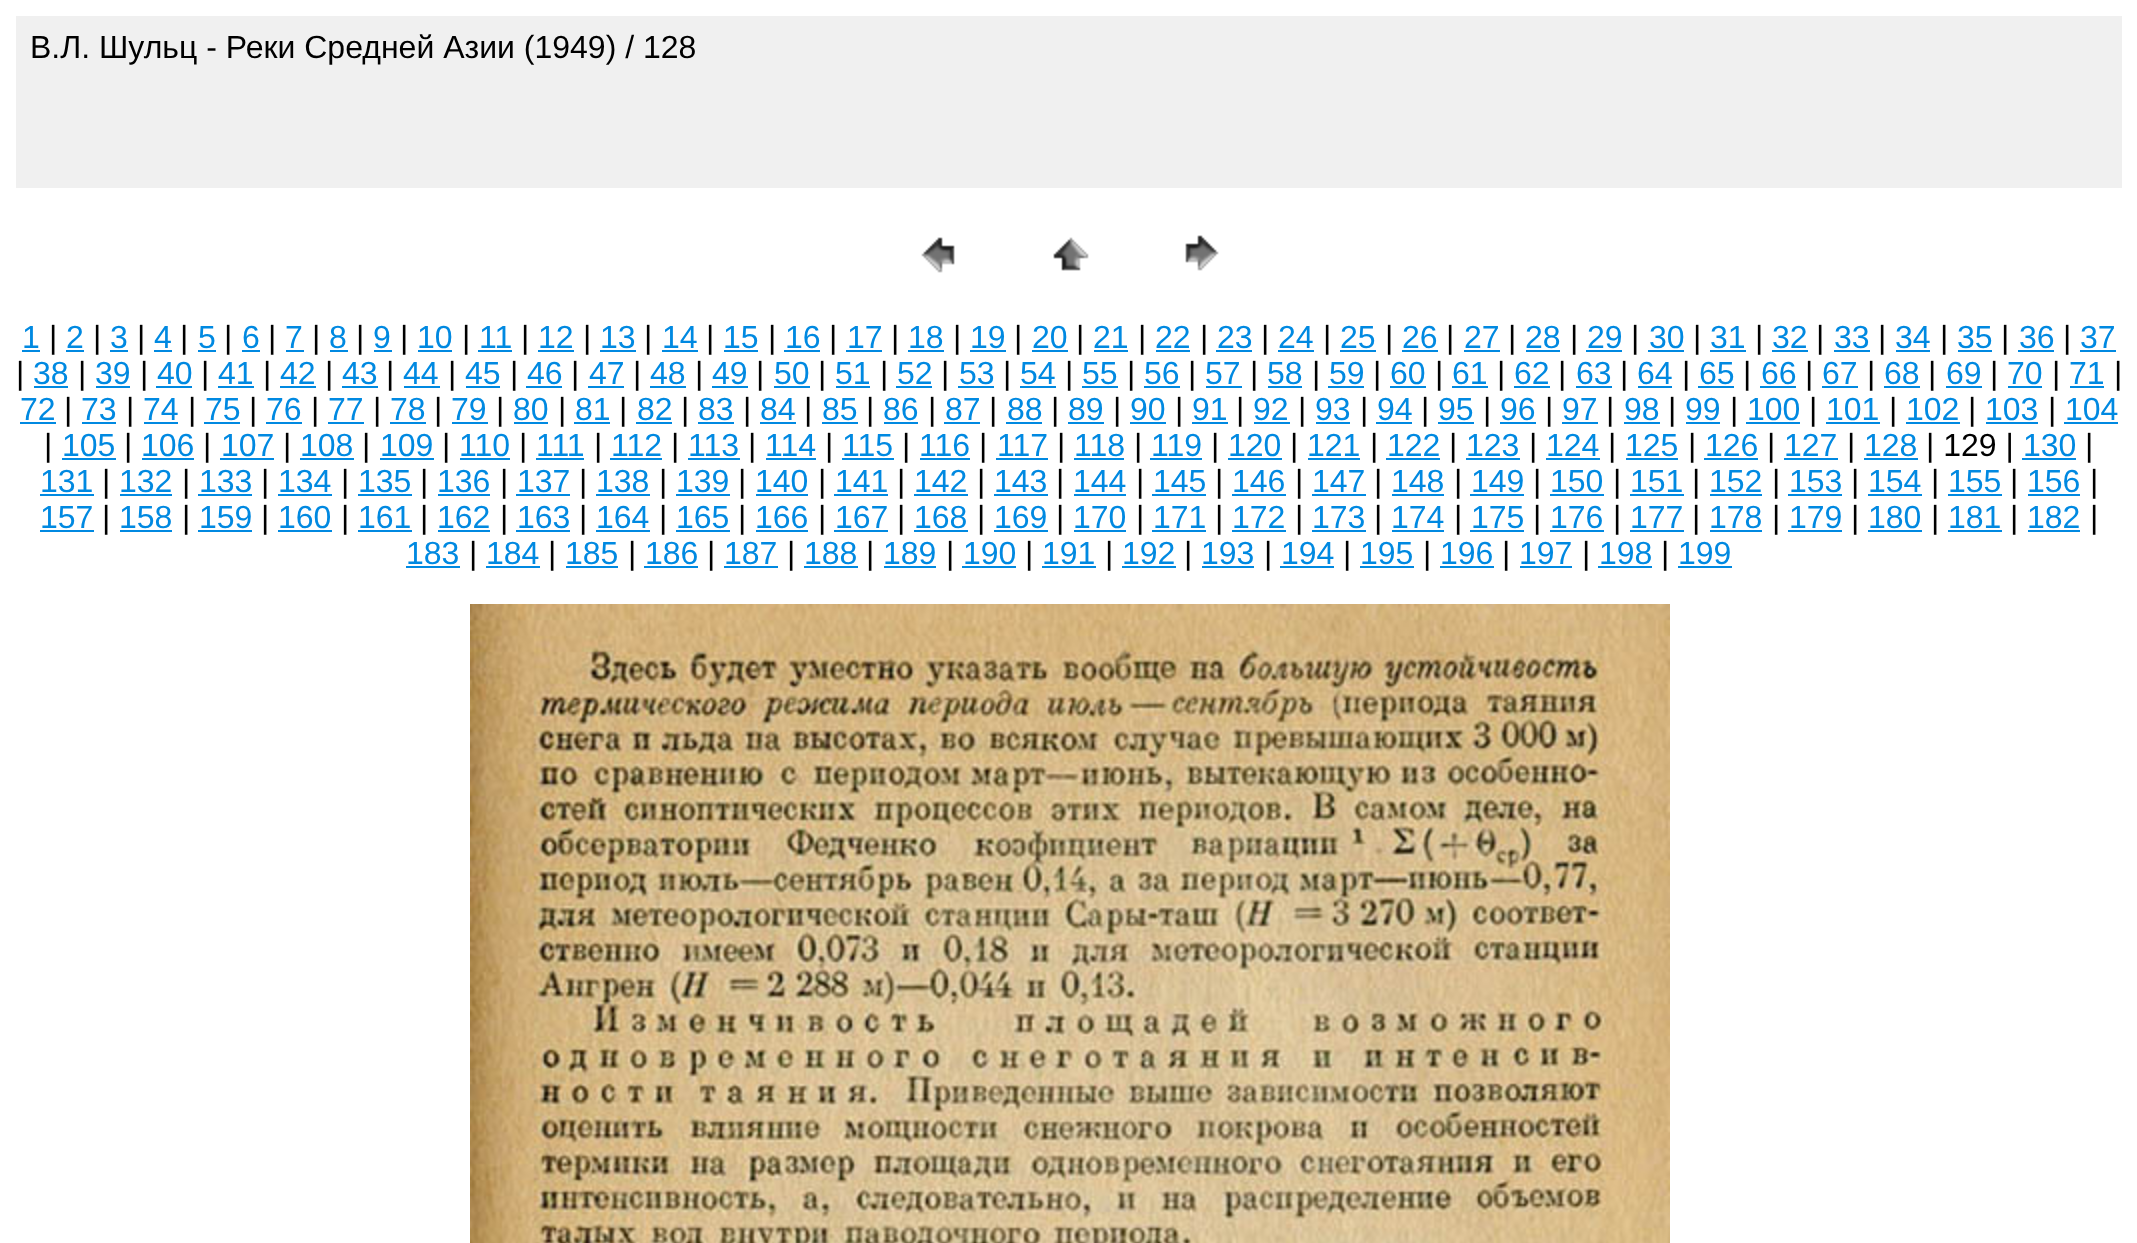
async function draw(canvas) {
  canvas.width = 2137
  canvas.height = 1243
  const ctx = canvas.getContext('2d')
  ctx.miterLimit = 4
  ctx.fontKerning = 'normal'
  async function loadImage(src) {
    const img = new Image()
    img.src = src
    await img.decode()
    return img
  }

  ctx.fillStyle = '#fff'
  ctx.fillRect(0, 0, 2137, 1243)
  ctx.fillStyle = '#f0f0f0'
  ctx.fillRect(16, 16, 2106, 172)
  ctx.font = '32px Liberation Sans'
  ctx.fillStyle = '#000'
  ctx.fillText('В.Л. Шульц - Реки Средней Азии (1949) / 128', 30, 58)
  ctx.drawImage(await loadImage('image0.png'), 921, 237, 34, 36)
  ctx.drawImage(await loadImage('image1.png'), 1053, 237, 36, 34)
  ctx.drawImage(await loadImage('image2.png'), 1185, 235, 34, 36)
  ctx.fillStyle = '#0089e1'
  ctx.fillText('1', 22, 348)
  ctx.fillRect(22, 350, 18, 2)
  ctx.fillStyle = '#000'
  ctx.fillText('|', 49, 348)
  ctx.fillStyle = '#0089e1'
  ctx.fillText('2', 66, 348)
  ctx.fillRect(66, 350, 18, 2)
  ctx.fillStyle = '#000'
  ctx.fillText('|', 93, 348)
  ctx.fillStyle = '#0089e1'
  ctx.fillText('3', 110, 348)
  ctx.fillRect(110, 350, 18, 2)
  ctx.fillStyle = '#000'
  ctx.fillText('|', 137, 348)
  ctx.fillStyle = '#0089e1'
  ctx.fillText('4', 154, 348)
  ctx.fillRect(154, 350, 18, 2)
  ctx.fillStyle = '#000'
  ctx.fillText('|', 180, 348)
  ctx.fillStyle = '#0089e1'
  ctx.fillText('5', 198, 348)
  ctx.fillRect(198, 350, 18, 2)
  ctx.fillStyle = '#000'
  ctx.fillText('|', 224, 348)
  ctx.fillStyle = '#0089e1'
  ctx.fillText('6', 242, 348)
  ctx.fillRect(242, 350, 18, 2)
  ctx.fillStyle = '#000'
  ctx.fillText('|', 268, 348)
  ctx.fillStyle = '#0089e1'
  ctx.fillText('7', 285, 348)
  ctx.fillRect(286, 350, 18, 2)
  ctx.fillStyle = '#000'
  ctx.fillText('|', 312, 348)
  ctx.fillStyle = '#0089e1'
  ctx.fillText('8', 329, 348)
  ctx.fillRect(330, 350, 18, 2)
  ctx.fillStyle = '#000'
  ctx.fillText('|', 356, 348)
  ctx.fillStyle = '#0089e1'
  ctx.fillText('9', 373, 348)
  ctx.fillRect(374, 350, 18, 2)
  ctx.fillStyle = '#000'
  ctx.fillText('|', 400, 348)
  ctx.fillStyle = '#0089e1'
  ctx.fillText('10', 417, 348)
  ctx.fillRect(418, 350, 34, 2)
  ctx.fillStyle = '#000'
  ctx.fillText('|', 462, 348)
  ctx.fillStyle = '#0089e1'
  ctx.fillText('11', 479, 348)
  ctx.fillRect(478, 350, 34, 2)
  ctx.fillStyle = '#000'
  ctx.fillText('|', 521, 348)
  ctx.fillStyle = '#0089e1'
  ctx.fillText('12', 538, 348)
  ctx.fillRect(538, 350, 36, 2)
  ctx.fillStyle = '#000'
  ctx.fillText('|', 583, 348)
  ctx.fillStyle = '#0089e1'
  ctx.fillText('13', 600, 348)
  ctx.fillRect(600, 350, 36, 2)
  ctx.fillStyle = '#000'
  ctx.fillText('|', 644, 348)
  ctx.fillStyle = '#0089e1'
  ctx.fillText('14', 662, 348)
  ctx.fillRect(662, 350, 36, 2)
  ctx.fillStyle = '#000'
  ctx.fillText('|', 706, 348)
  ctx.fillStyle = '#0089e1'
  ctx.fillText('15', 723, 348)
  ctx.fillRect(724, 350, 34, 2)
  ctx.fillStyle = '#000'
  ctx.fillText('|', 768, 348)
  ctx.fillStyle = '#0089e1'
  ctx.fillText('16', 785, 348)
  ctx.fillRect(784, 350, 36, 2)
  ctx.fillStyle = '#000'
  ctx.fillText('|', 829, 348)
  ctx.fillStyle = '#0089e1'
  ctx.fillText('17', 847, 348)
  ctx.fillRect(846, 350, 36, 2)
  ctx.fillStyle = '#000'
  ctx.fillText('|', 891, 348)
  ctx.fillStyle = '#0089e1'
  ctx.fillText('18', 908, 348)
  ctx.fillRect(908, 350, 36, 2)
  ctx.fillStyle = '#000'
  ctx.fillText('|', 953, 348)
  ctx.fillStyle = '#0089e1'
  ctx.fillText('19', 970, 348)
  ctx.fillRect(970, 350, 36, 2)
  ctx.fillStyle = '#000'
  ctx.fillText('|', 1014, 348)
  ctx.fillStyle = '#0089e1'
  ctx.fillText('20', 1032, 348)
  ctx.fillRect(1032, 350, 36, 2)
  ctx.fillStyle = '#000'
  ctx.fillText('|', 1076, 348)
  ctx.fillStyle = '#0089e1'
  ctx.fillText('21', 1093, 348)
  ctx.fillRect(1094, 350, 34, 2)
  ctx.fillStyle = '#000'
  ctx.fillText('|', 1138, 348)
  ctx.fillStyle = '#0089e1'
  ctx.fillText('22', 1155, 348)
  ctx.fillRect(1156, 350, 34, 2)
  ctx.fillStyle = '#000'
  ctx.fillText('|', 1200, 348)
  ctx.fillStyle = '#0089e1'
  ctx.fillText('23', 1217, 348)
  ctx.fillRect(1216, 350, 36, 2)
  ctx.fillStyle = '#000'
  ctx.fillText('|', 1261, 348)
  ctx.fillStyle = '#0089e1'
  ctx.fillText('24', 1278, 348)
  ctx.fillRect(1278, 350, 36, 2)
  ctx.fillStyle = '#000'
  ctx.fillText('|', 1323, 348)
  ctx.fillStyle = '#0089e1'
  ctx.fillText('25', 1340, 348)
  ctx.fillRect(1340, 350, 36, 2)
  ctx.fillStyle = '#000'
  ctx.fillText('|', 1385, 348)
  ctx.fillStyle = '#0089e1'
  ctx.fillText('26', 1402, 348)
  ctx.fillRect(1402, 350, 36, 2)
  ctx.fillStyle = '#000'
  ctx.fillText('|', 1446, 348)
  ctx.fillStyle = '#0089e1'
  ctx.fillText('27', 1464, 348)
  ctx.fillRect(1464, 350, 36, 2)
  ctx.fillStyle = '#000'
  ctx.fillText('|', 1508, 348)
  ctx.fillStyle = '#0089e1'
  ctx.fillText('28', 1525, 348)
  ctx.fillRect(1526, 350, 34, 2)
  ctx.fillStyle = '#000'
  ctx.fillText('|', 1570, 348)
  ctx.fillStyle = '#0089e1'
  ctx.fillText('29', 1587, 348)
  ctx.fillRect(1586, 350, 36, 2)
  ctx.fillStyle = '#000'
  ctx.fillText('|', 1631, 348)
  ctx.fillStyle = '#0089e1'
  ctx.fillText('30', 1649, 348)
  ctx.fillRect(1648, 350, 36, 2)
  ctx.fillStyle = '#000'
  ctx.fillText('|', 1693, 348)
  ctx.fillStyle = '#0089e1'
  ctx.fillText('31', 1710, 348)
  ctx.fillRect(1710, 350, 36, 2)
  ctx.fillStyle = '#000'
  ctx.fillText('|', 1755, 348)
  ctx.fillStyle = '#0089e1'
  ctx.fillText('32', 1772, 348)
  ctx.fillRect(1772, 350, 36, 2)
  ctx.fillStyle = '#000'
  ctx.fillText('|', 1816, 348)
  ctx.fillStyle = '#0089e1'
  ctx.fillText('33', 1834, 348)
  ctx.fillRect(1834, 350, 36, 2)
  ctx.fillStyle = '#000'
  ctx.fillText('|', 1878, 348)
  ctx.fillStyle = '#0089e1'
  ctx.fillText('34', 1895, 348)
  ctx.fillRect(1896, 350, 34, 2)
  ctx.fillStyle = '#000'
  ctx.fillText('|', 1940, 348)
  ctx.fillStyle = '#0089e1'
  ctx.fillText('35', 1957, 348)
  ctx.fillRect(1958, 350, 34, 2)
  ctx.fillStyle = '#000'
  ctx.fillText('|', 2001, 348)
  ctx.fillStyle = '#0089e1'
  ctx.fillText('36', 2019, 348)
  ctx.fillRect(2018, 350, 36, 2)
  ctx.fillStyle = '#000'
  ctx.fillText('|', 2063, 348)
  ctx.fillStyle = '#0089e1'
  ctx.fillText('37', 2080, 348)
  ctx.fillRect(2080, 350, 36, 2)
  ctx.fillStyle = '#000'
  ctx.fillText('|', 16, 384)
  ctx.fillStyle = '#0089e1'
  ctx.fillText('38', 33, 384)
  ctx.fillRect(34, 386, 34, 2)
  ctx.fillStyle = '#000'
  ctx.fillText('|', 78, 384)
  ctx.fillStyle = '#0089e1'
  ctx.fillText('39', 95, 384)
  ctx.fillRect(96, 386, 34, 2)
  ctx.fillStyle = '#000'
  ctx.fillText('|', 140, 384)
  ctx.fillStyle = '#0089e1'
  ctx.fillText('40', 157, 384)
  ctx.fillRect(156, 386, 36, 2)
  ctx.fillStyle = '#000'
  ctx.fillText('|', 201, 384)
  ctx.fillStyle = '#0089e1'
  ctx.fillText('41', 218, 384)
  ctx.fillRect(218, 386, 36, 2)
  ctx.fillStyle = '#000'
  ctx.fillText('|', 263, 384)
  ctx.fillStyle = '#0089e1'
  ctx.fillText('42', 280, 384)
  ctx.fillRect(280, 386, 36, 2)
  ctx.fillStyle = '#000'
  ctx.fillText('|', 325, 384)
  ctx.fillStyle = '#0089e1'
  ctx.fillText('43', 342, 384)
  ctx.fillRect(342, 386, 36, 2)
  ctx.fillStyle = '#000'
  ctx.fillText('|', 386, 384)
  ctx.fillStyle = '#0089e1'
  ctx.fillText('44', 403, 384)
  ctx.fillRect(404, 386, 36, 2)
  ctx.fillStyle = '#000'
  ctx.fillText('|', 448, 384)
  ctx.fillStyle = '#0089e1'
  ctx.fillText('45', 465, 384)
  ctx.fillRect(466, 386, 34, 2)
  ctx.fillStyle = '#000'
  ctx.fillText('|', 510, 384)
  ctx.fillStyle = '#0089e1'
  ctx.fillText('46', 527, 384)
  ctx.fillRect(526, 386, 36, 2)
  ctx.fillStyle = '#000'
  ctx.fillText('|', 571, 384)
  ctx.fillStyle = '#0089e1'
  ctx.fillText('47', 589, 384)
  ctx.fillRect(588, 386, 36, 2)
  ctx.fillStyle = '#000'
  ctx.fillText('|', 633, 384)
  ctx.fillStyle = '#0089e1'
  ctx.fillText('48', 650, 384)
  ctx.fillRect(650, 386, 36, 2)
  ctx.fillStyle = '#000'
  ctx.fillText('|', 695, 384)
  ctx.fillStyle = '#0089e1'
  ctx.fillText('49', 712, 384)
  ctx.fillRect(712, 386, 36, 2)
  ctx.fillStyle = '#000'
  ctx.fillText('|', 756, 384)
  ctx.fillStyle = '#0089e1'
  ctx.fillText('50', 774, 384)
  ctx.fillRect(774, 386, 36, 2)
  ctx.fillStyle = '#000'
  ctx.fillText('|', 818, 384)
  ctx.fillStyle = '#0089e1'
  ctx.fillText('51', 835, 384)
  ctx.fillRect(836, 386, 34, 2)
  ctx.fillStyle = '#000'
  ctx.fillText('|', 880, 384)
  ctx.fillStyle = '#0089e1'
  ctx.fillText('52', 897, 384)
  ctx.fillRect(896, 386, 36, 2)
  ctx.fillStyle = '#000'
  ctx.fillText('|', 941, 384)
  ctx.fillStyle = '#0089e1'
  ctx.fillText('53', 959, 384)
  ctx.fillRect(958, 386, 36, 2)
  ctx.fillStyle = '#000'
  ctx.fillText('|', 1003, 384)
  ctx.fillStyle = '#0089e1'
  ctx.fillText('54', 1020, 384)
  ctx.fillRect(1020, 386, 36, 2)
  ctx.fillStyle = '#000'
  ctx.fillText('|', 1065, 384)
  ctx.fillStyle = '#0089e1'
  ctx.fillText('55', 1082, 384)
  ctx.fillRect(1082, 386, 36, 2)
  ctx.fillStyle = '#000'
  ctx.fillText('|', 1127, 384)
  ctx.fillStyle = '#0089e1'
  ctx.fillText('56', 1144, 384)
  ctx.fillRect(1144, 386, 36, 2)
  ctx.fillStyle = '#000'
  ctx.fillText('|', 1188, 384)
  ctx.fillStyle = '#0089e1'
  ctx.fillText('57', 1205, 384)
  ctx.fillRect(1206, 386, 36, 2)
  ctx.fillStyle = '#000'
  ctx.fillText('|', 1250, 384)
  ctx.fillStyle = '#0089e1'
  ctx.fillText('58', 1267, 384)
  ctx.fillRect(1268, 386, 34, 2)
  ctx.fillStyle = '#000'
  ctx.fillText('|', 1312, 384)
  ctx.fillStyle = '#0089e1'
  ctx.fillText('59', 1329, 384)
  ctx.fillRect(1328, 386, 36, 2)
  ctx.fillStyle = '#000'
  ctx.fillText('|', 1373, 384)
  ctx.fillStyle = '#0089e1'
  ctx.fillText('60', 1390, 384)
  ctx.fillRect(1390, 386, 36, 2)
  ctx.fillStyle = '#000'
  ctx.fillText('|', 1435, 384)
  ctx.fillStyle = '#0089e1'
  ctx.fillText('61', 1452, 384)
  ctx.fillRect(1452, 386, 36, 2)
  ctx.fillStyle = '#000'
  ctx.fillText('|', 1497, 384)
  ctx.fillStyle = '#0089e1'
  ctx.fillText('62', 1514, 384)
  ctx.fillRect(1514, 386, 36, 2)
  ctx.fillStyle = '#000'
  ctx.fillText('|', 1558, 384)
  ctx.fillStyle = '#0089e1'
  ctx.fillText('63', 1576, 384)
  ctx.fillRect(1576, 386, 36, 2)
  ctx.fillStyle = '#000'
  ctx.fillText('|', 1620, 384)
  ctx.fillStyle = '#0089e1'
  ctx.fillText('64', 1637, 384)
  ctx.fillRect(1638, 386, 34, 2)
  ctx.fillStyle = '#000'
  ctx.fillText('|', 1682, 384)
  ctx.fillStyle = '#0089e1'
  ctx.fillText('65', 1699, 384)
  ctx.fillRect(1698, 386, 36, 2)
  ctx.fillStyle = '#000'
  ctx.fillText('|', 1743, 384)
  ctx.fillStyle = '#0089e1'
  ctx.fillText('66', 1761, 384)
  ctx.fillRect(1760, 386, 36, 2)
  ctx.fillStyle = '#000'
  ctx.fillText('|', 1805, 384)
  ctx.fillStyle = '#0089e1'
  ctx.fillText('67', 1822, 384)
  ctx.fillRect(1822, 386, 36, 2)
  ctx.fillStyle = '#000'
  ctx.fillText('|', 1867, 384)
  ctx.fillStyle = '#0089e1'
  ctx.fillText('68', 1884, 384)
  ctx.fillRect(1884, 386, 36, 2)
  ctx.fillStyle = '#000'
  ctx.fillText('|', 1928, 384)
  ctx.fillStyle = '#0089e1'
  ctx.fillText('69', 1946, 384)
  ctx.fillRect(1946, 386, 36, 2)
  ctx.fillStyle = '#000'
  ctx.fillText('|', 1990, 384)
  ctx.fillStyle = '#0089e1'
  ctx.fillText('70', 2007, 384)
  ctx.fillRect(2008, 386, 34, 2)
  ctx.fillStyle = '#000'
  ctx.fillText('|', 2052, 384)
  ctx.fillStyle = '#0089e1'
  ctx.fillText('71', 2069, 384)
  ctx.fillRect(2070, 386, 34, 2)
  ctx.fillStyle = '#000'
  ctx.fillText('|', 2114, 384)
  ctx.fillStyle = '#0089e1'
  ctx.fillText('72', 20, 420)
  ctx.fillRect(20, 422, 36, 2)
  ctx.fillStyle = '#000'
  ctx.fillText('|', 64, 420)
  ctx.fillStyle = '#0089e1'
  ctx.fillText('73', 81, 420)
  ctx.fillRect(82, 422, 34, 2)
  ctx.fillStyle = '#000'
  ctx.fillText('|', 126, 420)
  ctx.fillStyle = '#0089e1'
  ctx.fillText('74', 143, 420)
  ctx.fillRect(144, 422, 34, 2)
  ctx.fillStyle = '#000'
  ctx.fillText('|', 188, 420)
  ctx.fillStyle = '#0089e1'
  ctx.fillText('75', 205, 420)
  ctx.fillRect(204, 422, 36, 2)
  ctx.fillStyle = '#000'
  ctx.fillText('|', 249, 420)
  ctx.fillStyle = '#0089e1'
  ctx.fillText('76', 266, 420)
  ctx.fillRect(266, 422, 36, 2)
  ctx.fillStyle = '#000'
  ctx.fillText('|', 311, 420)
  ctx.fillStyle = '#0089e1'
  ctx.fillText('77', 328, 420)
  ctx.fillRect(328, 422, 36, 2)
  ctx.fillStyle = '#000'
  ctx.fillText('|', 373, 420)
  ctx.fillStyle = '#0089e1'
  ctx.fillText('78', 390, 420)
  ctx.fillRect(390, 422, 36, 2)
  ctx.fillStyle = '#000'
  ctx.fillText('|', 434, 420)
  ctx.fillStyle = '#0089e1'
  ctx.fillText('79', 451, 420)
  ctx.fillRect(452, 422, 36, 2)
  ctx.fillStyle = '#000'
  ctx.fillText('|', 496, 420)
  ctx.fillStyle = '#0089e1'
  ctx.fillText('80', 513, 420)
  ctx.fillRect(514, 422, 34, 2)
  ctx.fillStyle = '#000'
  ctx.fillText('|', 558, 420)
  ctx.fillStyle = '#0089e1'
  ctx.fillText('81', 575, 420)
  ctx.fillRect(574, 422, 36, 2)
  ctx.fillStyle = '#000'
  ctx.fillText('|', 619, 420)
  ctx.fillStyle = '#0089e1'
  ctx.fillText('82', 637, 420)
  ctx.fillRect(636, 422, 36, 2)
  ctx.fillStyle = '#000'
  ctx.fillText('|', 681, 420)
  ctx.fillStyle = '#0089e1'
  ctx.fillText('83', 698, 420)
  ctx.fillRect(698, 422, 36, 2)
  ctx.fillStyle = '#000'
  ctx.fillText('|', 743, 420)
  ctx.fillStyle = '#0089e1'
  ctx.fillText('84', 760, 420)
  ctx.fillRect(760, 422, 36, 2)
  ctx.fillStyle = '#000'
  ctx.fillText('|', 804, 420)
  ctx.fillStyle = '#0089e1'
  ctx.fillText('85', 822, 420)
  ctx.fillRect(822, 422, 36, 2)
  ctx.fillStyle = '#000'
  ctx.fillText('|', 866, 420)
  ctx.fillStyle = '#0089e1'
  ctx.fillText('86', 883, 420)
  ctx.fillRect(884, 422, 34, 2)
  ctx.fillStyle = '#000'
  ctx.fillText('|', 928, 420)
  ctx.fillStyle = '#0089e1'
  ctx.fillText('87', 945, 420)
  ctx.fillRect(944, 422, 36, 2)
  ctx.fillStyle = '#000'
  ctx.fillText('|', 989, 420)
  ctx.fillStyle = '#0089e1'
  ctx.fillText('88', 1007, 420)
  ctx.fillRect(1006, 422, 36, 2)
  ctx.fillStyle = '#000'
  ctx.fillText('|', 1051, 420)
  ctx.fillStyle = '#0089e1'
  ctx.fillText('89', 1068, 420)
  ctx.fillRect(1068, 422, 36, 2)
  ctx.fillStyle = '#000'
  ctx.fillText('|', 1113, 420)
  ctx.fillStyle = '#0089e1'
  ctx.fillText('90', 1130, 420)
  ctx.fillRect(1130, 422, 36, 2)
  ctx.fillStyle = '#000'
  ctx.fillText('|', 1175, 420)
  ctx.fillStyle = '#0089e1'
  ctx.fillText('91', 1192, 420)
  ctx.fillRect(1192, 422, 36, 2)
  ctx.fillStyle = '#000'
  ctx.fillText('|', 1236, 420)
  ctx.fillStyle = '#0089e1'
  ctx.fillText('92', 1253, 420)
  ctx.fillRect(1254, 422, 36, 2)
  ctx.fillStyle = '#000'
  ctx.fillText('|', 1298, 420)
  ctx.fillStyle = '#0089e1'
  ctx.fillText('93', 1315, 420)
  ctx.fillRect(1316, 422, 34, 2)
  ctx.fillStyle = '#000'
  ctx.fillText('|', 1360, 420)
  ctx.fillStyle = '#0089e1'
  ctx.fillText('94', 1377, 420)
  ctx.fillRect(1376, 422, 36, 2)
  ctx.fillStyle = '#000'
  ctx.fillText('|', 1421, 420)
  ctx.fillStyle = '#0089e1'
  ctx.fillText('95', 1438, 420)
  ctx.fillRect(1438, 422, 36, 2)
  ctx.fillStyle = '#000'
  ctx.fillText('|', 1483, 420)
  ctx.fillStyle = '#0089e1'
  ctx.fillText('96', 1500, 420)
  ctx.fillRect(1500, 422, 36, 2)
  ctx.fillStyle = '#000'
  ctx.fillText('|', 1545, 420)
  ctx.fillStyle = '#0089e1'
  ctx.fillText('97', 1562, 420)
  ctx.fillRect(1562, 422, 36, 2)
  ctx.fillStyle = '#000'
  ctx.fillText('|', 1606, 420)
  ctx.fillStyle = '#0089e1'
  ctx.fillText('98', 1624, 420)
  ctx.fillRect(1624, 422, 36, 2)
  ctx.fillStyle = '#000'
  ctx.fillText('|', 1668, 420)
  ctx.fillStyle = '#0089e1'
  ctx.fillText('99', 1685, 420)
  ctx.fillRect(1686, 422, 34, 2)
  ctx.fillStyle = '#000'
  ctx.fillText('|', 1730, 420)
  ctx.fillStyle = '#0089e1'
  ctx.fillText('100', 1747, 420)
  ctx.fillRect(1746, 422, 54, 2)
  ctx.fillStyle = '#000'
  ctx.fillText('|', 1809, 420)
  ctx.fillStyle = '#0089e1'
  ctx.fillText('101', 1826, 420)
  ctx.fillRect(1826, 422, 54, 2)
  ctx.fillStyle = '#000'
  ctx.fillText('|', 1889, 420)
  ctx.fillStyle = '#0089e1'
  ctx.fillText('102', 1906, 420)
  ctx.fillRect(1906, 422, 54, 2)
  ctx.fillStyle = '#000'
  ctx.fillText('|', 1968, 420)
  ctx.fillStyle = '#0089e1'
  ctx.fillText('103', 1985, 420)
  ctx.fillRect(1986, 422, 52, 2)
  ctx.fillStyle = '#000'
  ctx.fillText('|', 2048, 420)
  ctx.fillStyle = '#0089e1'
  ctx.fillText('104', 2065, 420)
  ctx.fillRect(2064, 422, 54, 2)
  ctx.fillStyle = '#000'
  ctx.fillText('|', 44, 456)
  ctx.fillStyle = '#0089e1'
  ctx.fillText('105', 62, 456)
  ctx.fillRect(62, 458, 54, 2)
  ctx.fillStyle = '#000'
  ctx.fillText('|', 124, 456)
  ctx.fillStyle = '#0089e1'
  ctx.fillText('106', 141, 456)
  ctx.fillRect(142, 458, 52, 2)
  ctx.fillStyle = '#000'
  ctx.fillText('|', 203, 456)
  ctx.fillStyle = '#0089e1'
  ctx.fillText('107', 221, 456)
  ctx.fillRect(220, 458, 54, 2)
  ctx.fillStyle = '#000'
  ctx.fillText('|', 283, 456)
  ctx.fillStyle = '#0089e1'
  ctx.fillText('108', 300, 456)
  ctx.fillRect(300, 458, 54, 2)
  ctx.fillStyle = '#000'
  ctx.fillText('|', 362, 456)
  ctx.fillStyle = '#0089e1'
  ctx.fillText('109', 380, 456)
  ctx.fillRect(380, 458, 54, 2)
  ctx.fillStyle = '#000'
  ctx.fillText('|', 442, 456)
  ctx.fillStyle = '#0089e1'
  ctx.fillText('110', 459, 456)
  ctx.fillRect(460, 458, 50, 2)
  ctx.fillStyle = '#000'
  ctx.fillText('|', 519, 456)
  ctx.fillStyle = '#0089e1'
  ctx.fillText('111', 536, 456)
  ctx.fillRect(536, 458, 48, 2)
  ctx.fillStyle = '#000'
  ctx.fillText('|', 594, 456)
  ctx.fillStyle = '#0089e1'
  ctx.fillText('112', 611, 456)
  ctx.fillRect(610, 458, 52, 2)
  ctx.fillStyle = '#000'
  ctx.fillText('|', 671, 456)
  ctx.fillStyle = '#0089e1'
  ctx.fillText('113', 688, 456)
  ctx.fillRect(688, 458, 52, 2)
  ctx.fillStyle = '#000'
  ctx.fillText('|', 748, 456)
  ctx.fillStyle = '#0089e1'
  ctx.fillText('114', 765, 456)
  ctx.fillRect(766, 458, 50, 2)
  ctx.fillStyle = '#000'
  ctx.fillText('|', 825, 456)
  ctx.fillStyle = '#0089e1'
  ctx.fillText('115', 842, 456)
  ctx.fillRect(842, 458, 52, 2)
  ctx.fillStyle = '#000'
  ctx.fillText('|', 902, 456)
  ctx.fillStyle = '#0089e1'
  ctx.fillText('116', 919, 456)
  ctx.fillRect(920, 458, 50, 2)
  ctx.fillStyle = '#000'
  ctx.fillText('|', 979, 456)
  ctx.fillStyle = '#0089e1'
  ctx.fillText('117', 997, 456)
  ctx.fillRect(996, 458, 52, 2)
  ctx.fillStyle = '#000'
  ctx.fillText('|', 1057, 456)
  ctx.fillStyle = '#0089e1'
  ctx.fillText('118', 1074, 456)
  ctx.fillRect(1074, 458, 50, 2)
  ctx.fillStyle = '#000'
  ctx.fillText('|', 1134, 456)
  ctx.fillStyle = '#0089e1'
  ctx.fillText('119', 1151, 456)
  ctx.fillRect(1150, 458, 52, 2)
  ctx.fillStyle = '#000'
  ctx.fillText('|', 1211, 456)
  ctx.fillStyle = '#0089e1'
  ctx.fillText('120', 1228, 456)
  ctx.fillRect(1228, 458, 54, 2)
  ctx.fillStyle = '#000'
  ctx.fillText('|', 1290, 456)
  ctx.fillStyle = '#0089e1'
  ctx.fillText('121', 1307, 456)
  ctx.fillRect(1308, 458, 52, 2)
  ctx.fillStyle = '#000'
  ctx.fillText('|', 1370, 456)
  ctx.fillStyle = '#0089e1'
  ctx.fillText('122', 1387, 456)
  ctx.fillRect(1386, 458, 54, 2)
  ctx.fillStyle = '#000'
  ctx.fillText('|', 1449, 456)
  ctx.fillStyle = '#0089e1'
  ctx.fillText('123', 1466, 456)
  ctx.fillRect(1466, 458, 54, 2)
  ctx.fillStyle = '#000'
  ctx.fillText('|', 1529, 456)
  ctx.fillStyle = '#0089e1'
  ctx.fillText('124', 1546, 456)
  ctx.fillRect(1546, 458, 54, 2)
  ctx.fillStyle = '#000'
  ctx.fillText('|', 1608, 456)
  ctx.fillStyle = '#0089e1'
  ctx.fillText('125', 1625, 456)
  ctx.fillRect(1626, 458, 52, 2)
  ctx.fillStyle = '#000'
  ctx.fillText('|', 1688, 456)
  ctx.fillStyle = '#0089e1'
  ctx.fillText('126', 1705, 456)
  ctx.fillRect(1704, 458, 54, 2)
  ctx.fillStyle = '#000'
  ctx.fillText('|', 1767, 456)
  ctx.fillStyle = '#0089e1'
  ctx.fillText('127', 1784, 456)
  ctx.fillRect(1784, 458, 54, 2)
  ctx.fillStyle = '#000'
  ctx.fillText('|', 1847, 456)
  ctx.fillStyle = '#0089e1'
  ctx.fillText('128', 1864, 456)
  ctx.fillRect(1864, 458, 54, 2)
  ctx.fillStyle = '#000'
  ctx.fillText('| 129 |', 1926, 456)
  ctx.fillStyle = '#0089e1'
  ctx.fillText('130', 2023, 456)
  ctx.fillRect(2022, 458, 54, 2)
  ctx.fillStyle = '#000'
  ctx.fillText('|', 2085, 456)
  ctx.fillStyle = '#0089e1'
  ctx.fillText('131', 40, 492)
  ctx.fillRect(40, 494, 54, 2)
  ctx.fillStyle = '#000'
  ctx.fillText('|', 102, 492)
  ctx.fillStyle = '#0089e1'
  ctx.fillText('132', 119, 492)
  ctx.fillRect(120, 494, 52, 2)
  ctx.fillStyle = '#000'
  ctx.fillText('|', 182, 492)
  ctx.fillStyle = '#0089e1'
  ctx.fillText('133', 199, 492)
  ctx.fillRect(198, 494, 54, 2)
  ctx.fillStyle = '#000'
  ctx.fillText('|', 261, 492)
  ctx.fillStyle = '#0089e1'
  ctx.fillText('134', 278, 492)
  ctx.fillRect(278, 494, 54, 2)
  ctx.fillStyle = '#000'
  ctx.fillText('|', 341, 492)
  ctx.fillStyle = '#0089e1'
  ctx.fillText('135', 358, 492)
  ctx.fillRect(358, 494, 54, 2)
  ctx.fillStyle = '#000'
  ctx.fillText('|', 420, 492)
  ctx.fillStyle = '#0089e1'
  ctx.fillText('136', 437, 492)
  ctx.fillRect(438, 494, 52, 2)
  ctx.fillStyle = '#000'
  ctx.fillText('|', 500, 492)
  ctx.fillStyle = '#0089e1'
  ctx.fillText('137', 517, 492)
  ctx.fillRect(516, 494, 54, 2)
  ctx.fillStyle = '#000'
  ctx.fillText('|', 579, 492)
  ctx.fillStyle = '#0089e1'
  ctx.fillText('138', 596, 492)
  ctx.fillRect(596, 494, 54, 2)
  ctx.fillStyle = '#000'
  ctx.fillText('|', 659, 492)
  ctx.fillStyle = '#0089e1'
  ctx.fillText('139', 676, 492)
  ctx.fillRect(676, 494, 54, 2)
  ctx.fillStyle = '#000'
  ctx.fillText('|', 738, 492)
  ctx.fillStyle = '#0089e1'
  ctx.fillText('140', 755, 492)
  ctx.fillRect(756, 494, 52, 2)
  ctx.fillStyle = '#000'
  ctx.fillText('|', 818, 492)
  ctx.fillStyle = '#0089e1'
  ctx.fillText('141', 835, 492)
  ctx.fillRect(834, 494, 54, 2)
  ctx.fillStyle = '#000'
  ctx.fillText('|', 897, 492)
  ctx.fillStyle = '#0089e1'
  ctx.fillText('142', 914, 492)
  ctx.fillRect(914, 494, 54, 2)
  ctx.fillStyle = '#000'
  ctx.fillText('|', 977, 492)
  ctx.fillStyle = '#0089e1'
  ctx.fillText('143', 994, 492)
  ctx.fillRect(994, 494, 54, 2)
  ctx.fillStyle = '#000'
  ctx.fillText('|', 1056, 492)
  ctx.fillStyle = '#0089e1'
  ctx.fillText('144', 1073, 492)
  ctx.fillRect(1074, 494, 52, 2)
  ctx.fillStyle = '#000'
  ctx.fillText('|', 1136, 492)
  ctx.fillStyle = '#0089e1'
  ctx.fillText('145', 1153, 492)
  ctx.fillRect(1152, 494, 54, 2)
  ctx.fillStyle = '#000'
  ctx.fillText('|', 1215, 492)
  ctx.fillStyle = '#0089e1'
  ctx.fillText('146', 1232, 492)
  ctx.fillRect(1232, 494, 54, 2)
  ctx.fillStyle = '#000'
  ctx.fillText('|', 1295, 492)
  ctx.fillStyle = '#0089e1'
  ctx.fillText('147', 1312, 492)
  ctx.fillRect(1312, 494, 54, 2)
  ctx.fillStyle = '#000'
  ctx.fillText('|', 1374, 492)
  ctx.fillStyle = '#0089e1'
  ctx.fillText('148', 1391, 492)
  ctx.fillRect(1392, 494, 52, 2)
  ctx.fillStyle = '#000'
  ctx.fillText('|', 1454, 492)
  ctx.fillStyle = '#0089e1'
  ctx.fillText('149', 1471, 492)
  ctx.fillRect(1470, 494, 54, 2)
  ctx.fillStyle = '#000'
  ctx.fillText('|', 1533, 492)
  ctx.fillStyle = '#0089e1'
  ctx.fillText('150', 1550, 492)
  ctx.fillRect(1550, 494, 54, 2)
  ctx.fillStyle = '#000'
  ctx.fillText('|', 1613, 492)
  ctx.fillStyle = '#0089e1'
  ctx.fillText('151', 1630, 492)
  ctx.fillRect(1630, 494, 54, 2)
  ctx.fillStyle = '#000'
  ctx.fillText('|', 1692, 492)
  ctx.fillStyle = '#0089e1'
  ctx.fillText('152', 1709, 492)
  ctx.fillRect(1710, 494, 52, 2)
  ctx.fillStyle = '#000'
  ctx.fillText('|', 1772, 492)
  ctx.fillStyle = '#0089e1'
  ctx.fillText('153', 1789, 492)
  ctx.fillRect(1788, 494, 54, 2)
  ctx.fillStyle = '#000'
  ctx.fillText('|', 1851, 492)
  ctx.fillStyle = '#0089e1'
  ctx.fillText('154', 1868, 492)
  ctx.fillRect(1868, 494, 54, 2)
  ctx.fillStyle = '#000'
  ctx.fillText('|', 1931, 492)
  ctx.fillStyle = '#0089e1'
  ctx.fillText('155', 1948, 492)
  ctx.fillRect(1948, 494, 54, 2)
  ctx.fillStyle = '#000'
  ctx.fillText('|', 2010, 492)
  ctx.fillStyle = '#0089e1'
  ctx.fillText('156', 2027, 492)
  ctx.fillRect(2028, 494, 52, 2)
  ctx.fillStyle = '#000'
  ctx.fillText('|', 2090, 492)
  ctx.fillStyle = '#0089e1'
  ctx.fillText('157', 40, 528)
  ctx.fillRect(40, 530, 54, 2)
  ctx.fillStyle = '#000'
  ctx.fillText('|', 102, 528)
  ctx.fillStyle = '#0089e1'
  ctx.fillText('158', 119, 528)
  ctx.fillRect(120, 530, 52, 2)
  ctx.fillStyle = '#000'
  ctx.fillText('|', 182, 528)
  ctx.fillStyle = '#0089e1'
  ctx.fillText('159', 199, 528)
  ctx.fillRect(198, 530, 54, 2)
  ctx.fillStyle = '#000'
  ctx.fillText('|', 261, 528)
  ctx.fillStyle = '#0089e1'
  ctx.fillText('160', 278, 528)
  ctx.fillRect(278, 530, 54, 2)
  ctx.fillStyle = '#000'
  ctx.fillText('|', 341, 528)
  ctx.fillStyle = '#0089e1'
  ctx.fillText('161', 358, 528)
  ctx.fillRect(358, 530, 54, 2)
  ctx.fillStyle = '#000'
  ctx.fillText('|', 420, 528)
  ctx.fillStyle = '#0089e1'
  ctx.fillText('162', 437, 528)
  ctx.fillRect(438, 530, 52, 2)
  ctx.fillStyle = '#000'
  ctx.fillText('|', 500, 528)
  ctx.fillStyle = '#0089e1'
  ctx.fillText('163', 517, 528)
  ctx.fillRect(516, 530, 54, 2)
  ctx.fillStyle = '#000'
  ctx.fillText('|', 579, 528)
  ctx.fillStyle = '#0089e1'
  ctx.fillText('164', 596, 528)
  ctx.fillRect(596, 530, 54, 2)
  ctx.fillStyle = '#000'
  ctx.fillText('|', 659, 528)
  ctx.fillStyle = '#0089e1'
  ctx.fillText('165', 676, 528)
  ctx.fillRect(676, 530, 54, 2)
  ctx.fillStyle = '#000'
  ctx.fillText('|', 738, 528)
  ctx.fillStyle = '#0089e1'
  ctx.fillText('166', 755, 528)
  ctx.fillRect(756, 530, 52, 2)
  ctx.fillStyle = '#000'
  ctx.fillText('|', 818, 528)
  ctx.fillStyle = '#0089e1'
  ctx.fillText('167', 835, 528)
  ctx.fillRect(834, 530, 54, 2)
  ctx.fillStyle = '#000'
  ctx.fillText('|', 897, 528)
  ctx.fillStyle = '#0089e1'
  ctx.fillText('168', 914, 528)
  ctx.fillRect(914, 530, 54, 2)
  ctx.fillStyle = '#000'
  ctx.fillText('|', 977, 528)
  ctx.fillStyle = '#0089e1'
  ctx.fillText('169', 994, 528)
  ctx.fillRect(994, 530, 54, 2)
  ctx.fillStyle = '#000'
  ctx.fillText('|', 1056, 528)
  ctx.fillStyle = '#0089e1'
  ctx.fillText('170', 1073, 528)
  ctx.fillRect(1074, 530, 52, 2)
  ctx.fillStyle = '#000'
  ctx.fillText('|', 1136, 528)
  ctx.fillStyle = '#0089e1'
  ctx.fillText('171', 1153, 528)
  ctx.fillRect(1152, 530, 54, 2)
  ctx.fillStyle = '#000'
  ctx.fillText('|', 1215, 528)
  ctx.fillStyle = '#0089e1'
  ctx.fillText('172', 1232, 528)
  ctx.fillRect(1232, 530, 54, 2)
  ctx.fillStyle = '#000'
  ctx.fillText('|', 1295, 528)
  ctx.fillStyle = '#0089e1'
  ctx.fillText('173', 1312, 528)
  ctx.fillRect(1312, 530, 54, 2)
  ctx.fillStyle = '#000'
  ctx.fillText('|', 1374, 528)
  ctx.fillStyle = '#0089e1'
  ctx.fillText('174', 1391, 528)
  ctx.fillRect(1392, 530, 52, 2)
  ctx.fillStyle = '#000'
  ctx.fillText('|', 1454, 528)
  ctx.fillStyle = '#0089e1'
  ctx.fillText('175', 1471, 528)
  ctx.fillRect(1470, 530, 54, 2)
  ctx.fillStyle = '#000'
  ctx.fillText('|', 1533, 528)
  ctx.fillStyle = '#0089e1'
  ctx.fillText('176', 1550, 528)
  ctx.fillRect(1550, 530, 54, 2)
  ctx.fillStyle = '#000'
  ctx.fillText('|', 1613, 528)
  ctx.fillStyle = '#0089e1'
  ctx.fillText('177', 1630, 528)
  ctx.fillRect(1630, 530, 54, 2)
  ctx.fillStyle = '#000'
  ctx.fillText('|', 1692, 528)
  ctx.fillStyle = '#0089e1'
  ctx.fillText('178', 1709, 528)
  ctx.fillRect(1710, 530, 52, 2)
  ctx.fillStyle = '#000'
  ctx.fillText('|', 1772, 528)
  ctx.fillStyle = '#0089e1'
  ctx.fillText('179', 1789, 528)
  ctx.fillRect(1788, 530, 54, 2)
  ctx.fillStyle = '#000'
  ctx.fillText('|', 1851, 528)
  ctx.fillStyle = '#0089e1'
  ctx.fillText('180', 1868, 528)
  ctx.fillRect(1868, 530, 54, 2)
  ctx.fillStyle = '#000'
  ctx.fillText('|', 1931, 528)
  ctx.fillStyle = '#0089e1'
  ctx.fillText('181', 1948, 528)
  ctx.fillRect(1948, 530, 54, 2)
  ctx.fillStyle = '#000'
  ctx.fillText('|', 2010, 528)
  ctx.fillStyle = '#0089e1'
  ctx.fillText('182', 2027, 528)
  ctx.fillRect(2028, 530, 52, 2)
  ctx.fillStyle = '#000'
  ctx.fillText('|', 2090, 528)
  ctx.fillStyle = '#0089e1'
  ctx.fillText('183', 406, 564)
  ctx.fillRect(406, 566, 54, 2)
  ctx.fillStyle = '#000'
  ctx.fillText('|', 469, 564)
  ctx.fillStyle = '#0089e1'
  ctx.fillText('184', 486, 564)
  ctx.fillRect(486, 566, 54, 2)
  ctx.fillStyle = '#000'
  ctx.fillText('|', 548, 564)
  ctx.fillStyle = '#0089e1'
  ctx.fillText('185', 565, 564)
  ctx.fillRect(566, 566, 52, 2)
  ctx.fillStyle = '#000'
  ctx.fillText('|', 628, 564)
  ctx.fillStyle = '#0089e1'
  ctx.fillText('186', 645, 564)
  ctx.fillRect(644, 566, 54, 2)
  ctx.fillStyle = '#000'
  ctx.fillText('|', 707, 564)
  ctx.fillStyle = '#0089e1'
  ctx.fillText('187', 724, 564)
  ctx.fillRect(724, 566, 54, 2)
  ctx.fillStyle = '#000'
  ctx.fillText('|', 787, 564)
  ctx.fillStyle = '#0089e1'
  ctx.fillText('188', 804, 564)
  ctx.fillRect(804, 566, 54, 2)
  ctx.fillStyle = '#000'
  ctx.fillText('|', 866, 564)
  ctx.fillStyle = '#0089e1'
  ctx.fillText('189', 883, 564)
  ctx.fillRect(884, 566, 52, 2)
  ctx.fillStyle = '#000'
  ctx.fillText('|', 946, 564)
  ctx.fillStyle = '#0089e1'
  ctx.fillText('190', 963, 564)
  ctx.fillRect(962, 566, 54, 2)
  ctx.fillStyle = '#000'
  ctx.fillText('|', 1025, 564)
  ctx.fillStyle = '#0089e1'
  ctx.fillText('191', 1042, 564)
  ctx.fillRect(1042, 566, 54, 2)
  ctx.fillStyle = '#000'
  ctx.fillText('|', 1105, 564)
  ctx.fillStyle = '#0089e1'
  ctx.fillText('192', 1122, 564)
  ctx.fillRect(1122, 566, 54, 2)
  ctx.fillStyle = '#000'
  ctx.fillText('|', 1184, 564)
  ctx.fillStyle = '#0089e1'
  ctx.fillText('193', 1201, 564)
  ctx.fillRect(1202, 566, 52, 2)
  ctx.fillStyle = '#000'
  ctx.fillText('|', 1264, 564)
  ctx.fillStyle = '#0089e1'
  ctx.fillText('194', 1281, 564)
  ctx.fillRect(1280, 566, 54, 2)
  ctx.fillStyle = '#000'
  ctx.fillText('|', 1343, 564)
  ctx.fillStyle = '#0089e1'
  ctx.fillText('195', 1360, 564)
  ctx.fillRect(1360, 566, 54, 2)
  ctx.fillStyle = '#000'
  ctx.fillText('|', 1423, 564)
  ctx.fillStyle = '#0089e1'
  ctx.fillText('196', 1440, 564)
  ctx.fillRect(1440, 566, 54, 2)
  ctx.fillStyle = '#000'
  ctx.fillText('|', 1502, 564)
  ctx.fillStyle = '#0089e1'
  ctx.fillText('197', 1519, 564)
  ctx.fillRect(1520, 566, 52, 2)
  ctx.fillStyle = '#000'
  ctx.fillText('|', 1582, 564)
  ctx.fillStyle = '#0089e1'
  ctx.fillText('198', 1599, 564)
  ctx.fillRect(1598, 566, 54, 2)
  ctx.fillStyle = '#000'
  ctx.fillText('|', 1661, 564)
  ctx.fillStyle = '#0089e1'
  ctx.fillText('199', 1678, 564)
  ctx.fillRect(1678, 566, 54, 2)
  ctx.drawImage(await loadImage('image3.png'), 470, 604, 1200, 639)
}

draw(document.querySelector('canvas'))
